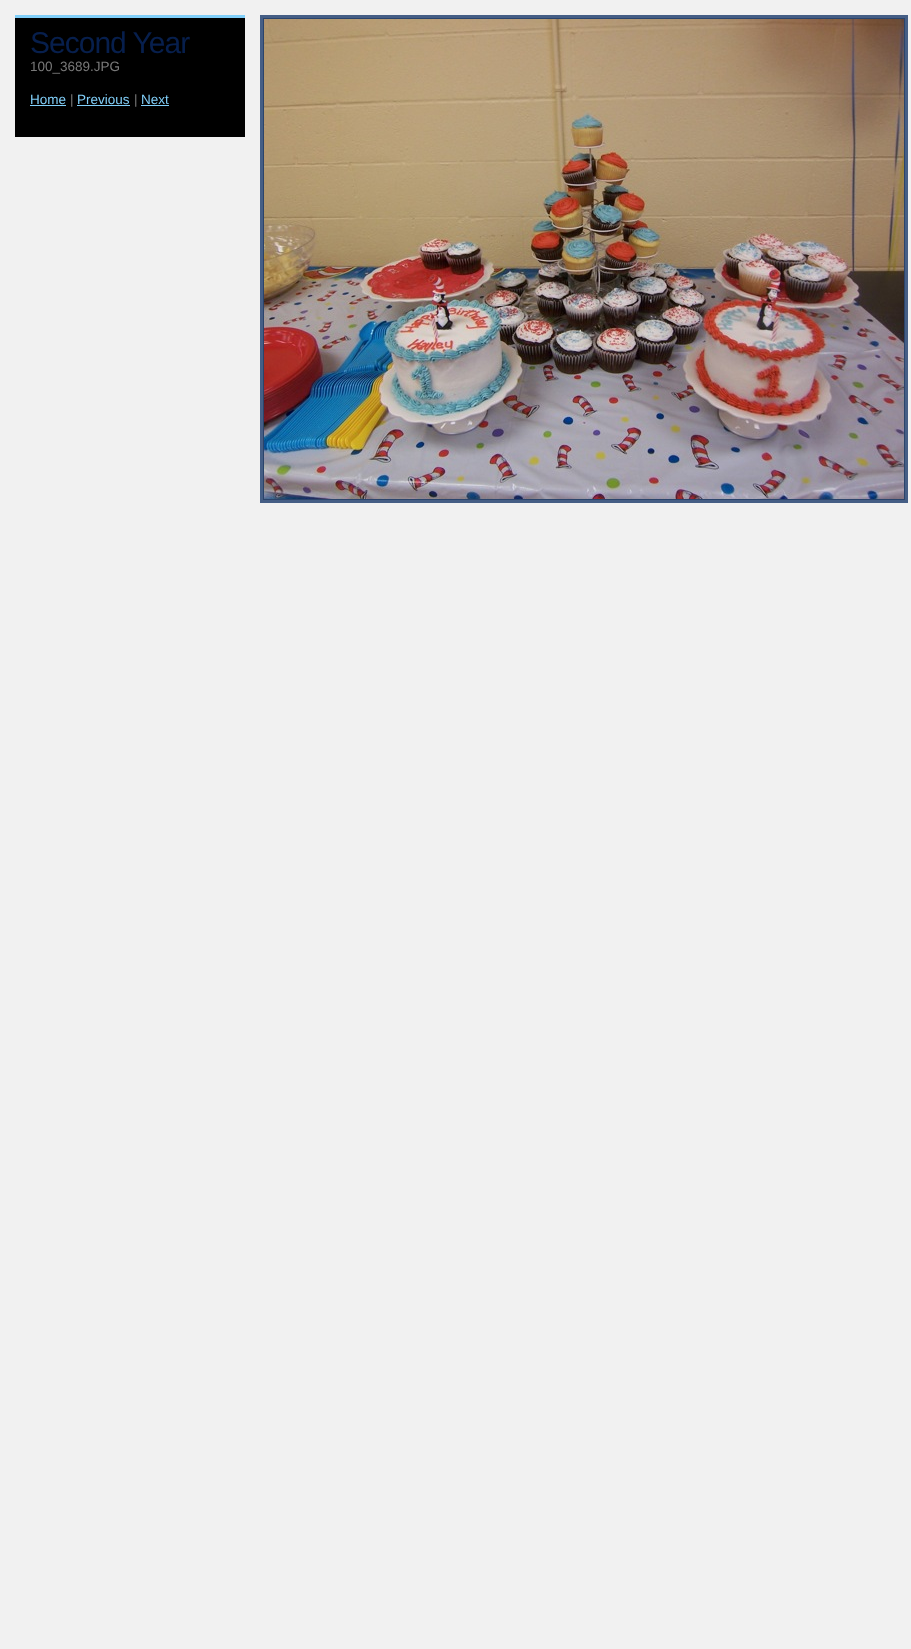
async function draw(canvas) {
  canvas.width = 911
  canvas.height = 1649
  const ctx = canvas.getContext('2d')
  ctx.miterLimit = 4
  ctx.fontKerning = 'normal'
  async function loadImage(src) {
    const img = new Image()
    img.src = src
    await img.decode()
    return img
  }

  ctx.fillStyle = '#f1f1f1'
  ctx.fillRect(0, 0, 911, 1649)
  ctx.fillStyle = '#000'
  ctx.fillRect(15, 18, 230, 119)
  ctx.fillStyle = '#81cff9'
  ctx.fillRect(15, 15, 230, 3)
  ctx.letterSpacing = '-1px'
  ctx.font = '30px Liberation Sans'
  ctx.fillStyle = '#071f4d'
  ctx.fillText('Second Year', 30, 53)
  ctx.letterSpacing = '0px'
  ctx.font = '13.5px Liberation Sans'
  ctx.fillStyle = '#797979'
  ctx.fillText('100_3689.JPG', 30, 71)
  ctx.fillStyle = '#81cff9'
  ctx.fillText('Home', 30, 104)
  ctx.fillRect(30, 105, 36, 1)
  ctx.fillStyle = '#797979'
  ctx.fillText('|', 70, 104)
  ctx.fillStyle = '#81cff9'
  ctx.fillText('Previous', 77, 104)
  ctx.fillRect(77, 105, 53, 1)
  ctx.fillStyle = '#797979'
  ctx.fillText('|', 134, 104)
  ctx.fillStyle = '#81cff9'
  ctx.fillText('Next', 141, 104)
  ctx.fillRect(141, 105, 28, 1)
  ctx.fillStyle = '#2b446b'
  ctx.beginPath()
  ctx.rect(261.5, 16.5, 645, 485)
  ctx.fill()
  ctx.strokeStyle = '#455e85'
  ctx.lineWidth = 3
  ctx.stroke()
  ctx.drawImage(await loadImage('image0.png'), 264, 19, 640, 480)
}

draw(document.querySelector('canvas'))
